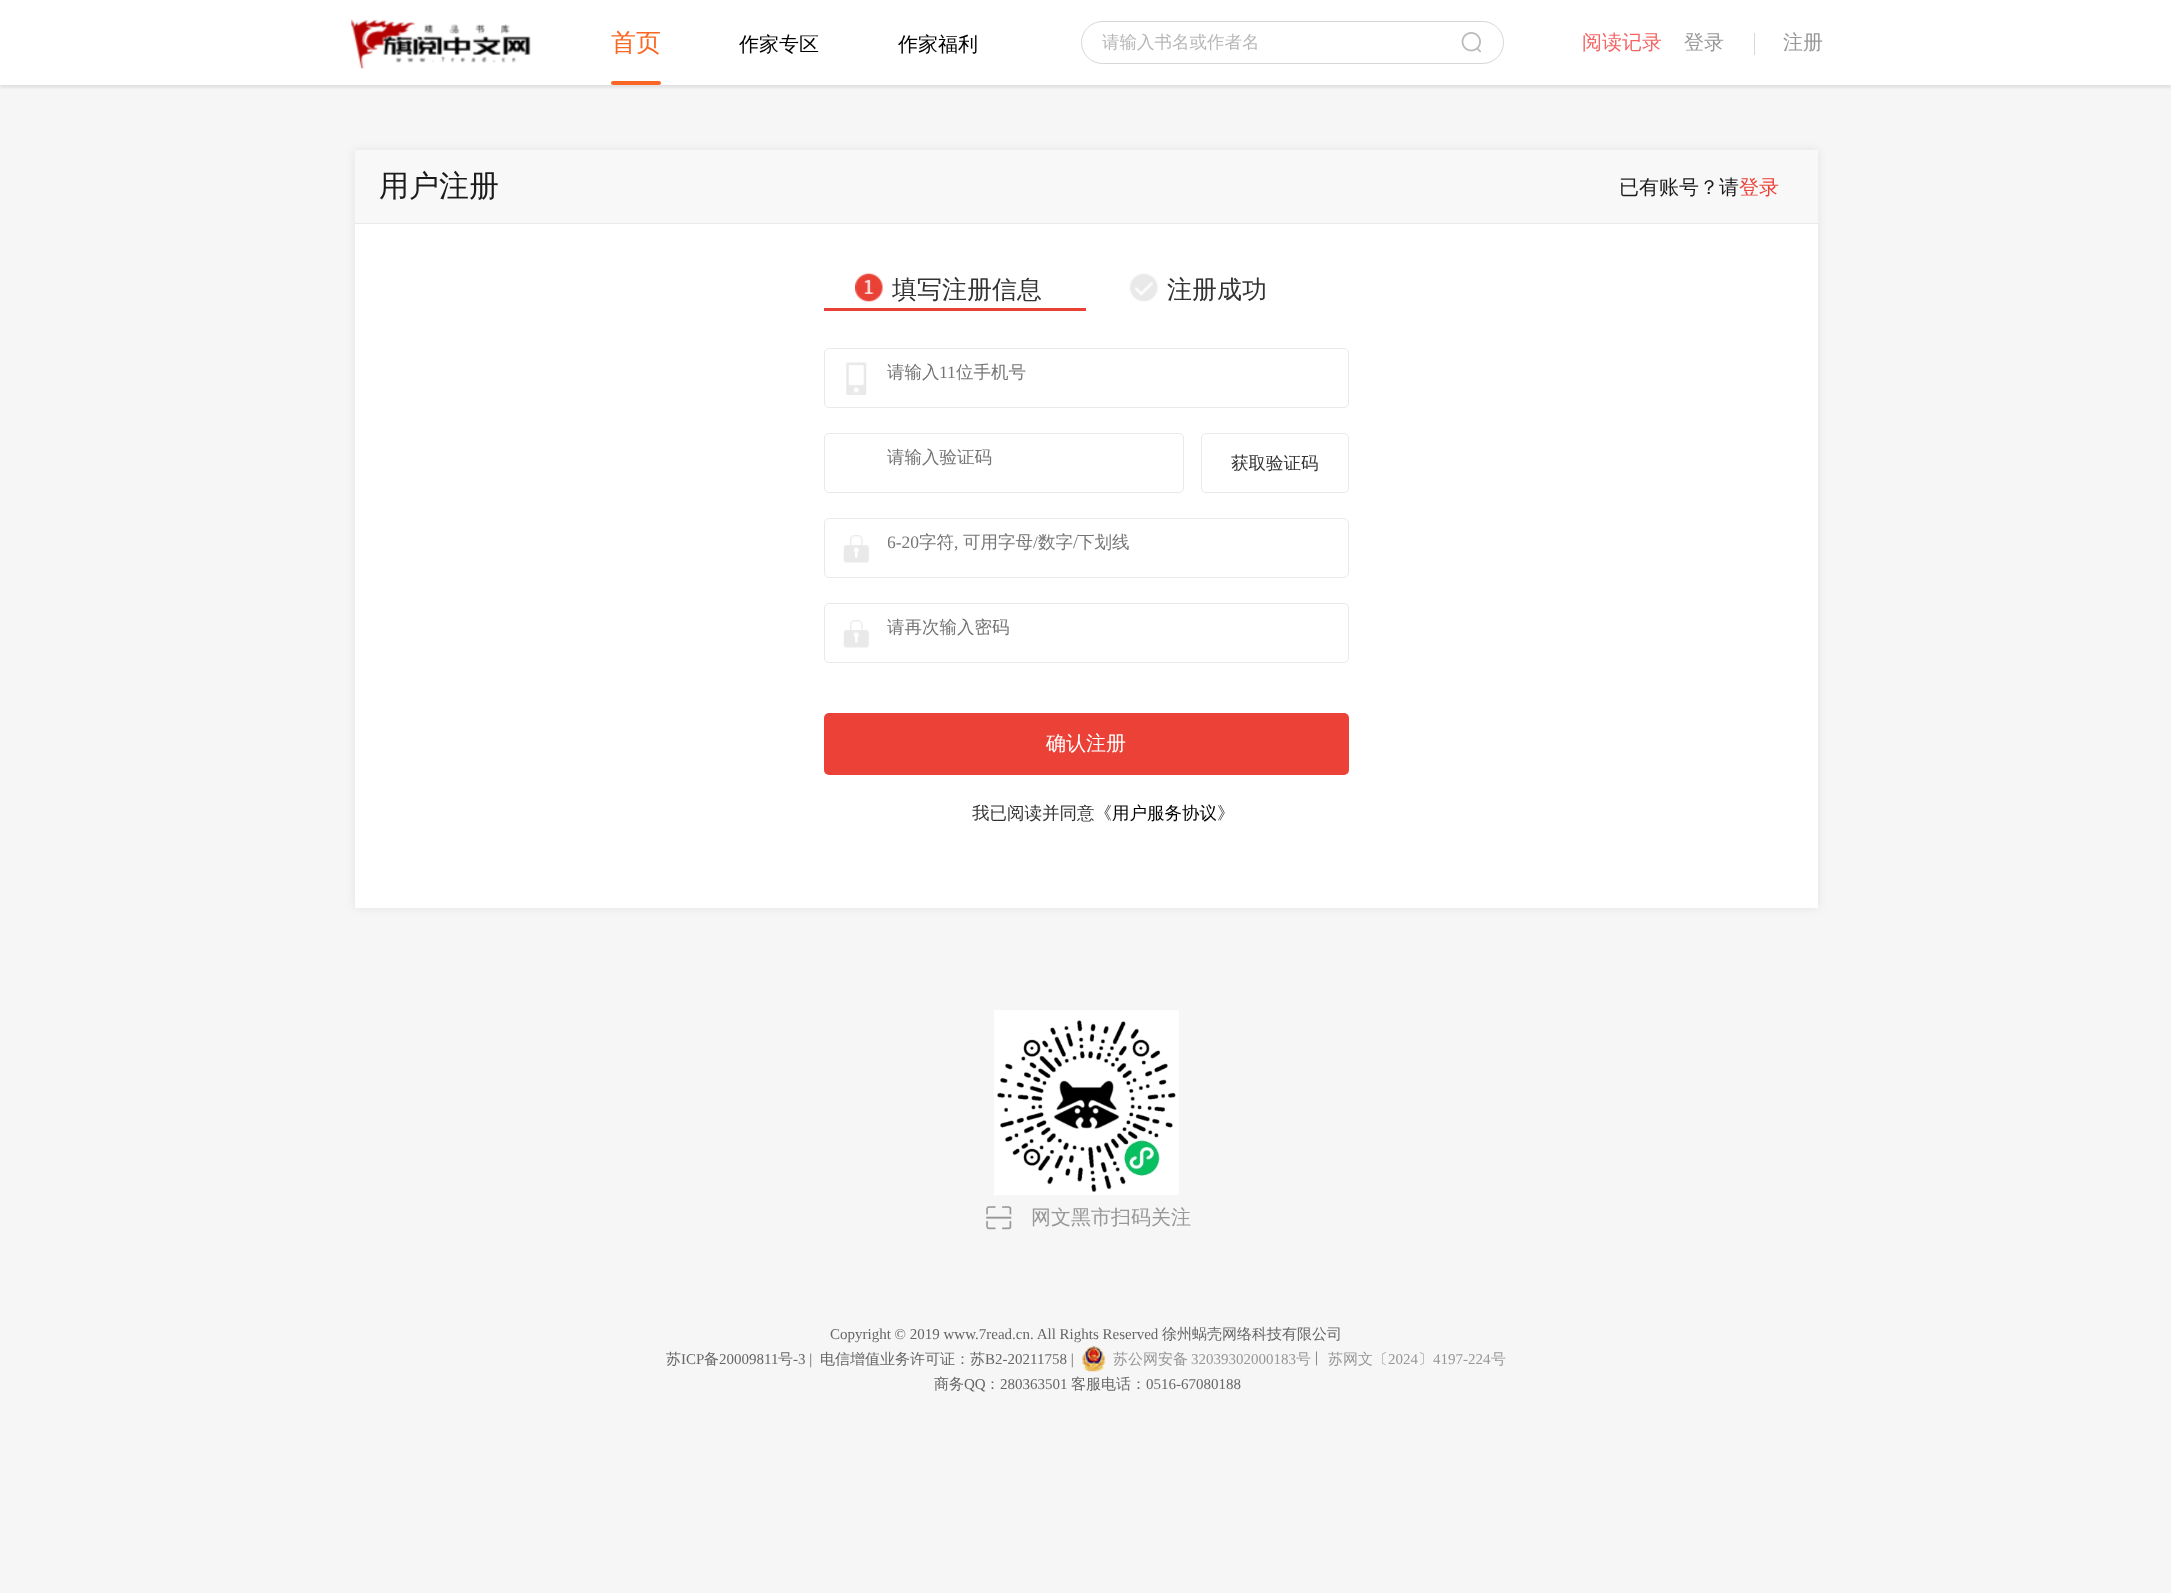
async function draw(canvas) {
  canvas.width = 2171
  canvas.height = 1593
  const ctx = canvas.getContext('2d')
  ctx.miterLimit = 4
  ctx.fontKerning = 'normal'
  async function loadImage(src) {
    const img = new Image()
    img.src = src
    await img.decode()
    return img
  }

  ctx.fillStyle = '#f6f6f6'
  ctx.fillRect(0, 0, 2171, 1593)
  ctx.fillStyle = '#00000014'
  ctx.filter = 'blur(1px)'
  ctx.beginPath()
  ctx.rect(0, 3, 2171, 85)
  ctx.fill()
  ctx.filter = 'none'
  ctx.fillStyle = '#fff'
  ctx.fillRect(0, 0, 2171, 85)
  ctx.drawImage(await loadImage('image0.png'), 350, 19, 181, 50)
  ctx.font = '500 25px WenQuanYi Zen Hei'
  ctx.fillStyle = '#fa6725'
  ctx.fillText('首页', 611, 51)
  ctx.beginPath()
  ctx.roundRect(611, 81, 50, 4, 2)
  ctx.fill()
  ctx.font = '500 20px WenQuanYi Zen Hei'
  ctx.fillStyle = '#000'
  ctx.fillText('作家专区', 739, 51)
  ctx.fillText('作家福利', 898, 51)
  ctx.beginPath()
  ctx.roundRect(1081.5, 21.5, 422, 42, 21)
  ctx.strokeStyle = '#d6d6d6'
  ctx.stroke()
  ctx.font = '500 17.5px WenQuanYi Zen Hei'
  ctx.fillStyle = '#b8b8b8'
  ctx.fillText('请输入书名或作者名', 1102, 48)
  ctx.drawImage(await loadImage('image1.png'), 1461, 32, 20, 21)
  ctx.font = '500 20px WenQuanYi Zen Hei'
  ctx.fillStyle = '#f56565'
  ctx.fillText('阅读记录', 1582, 49)
  ctx.fillStyle = '#979797'
  ctx.fillText('登录', 1684, 49)
  ctx.fillStyle = '#d8d8d8'
  ctx.fillRect(1754, 33, 1, 22)
  ctx.fillStyle = '#979797'
  ctx.fillText('注册', 1783, 49)
  ctx.fillStyle = '#00000014'
  ctx.filter = 'blur(5px)'
  ctx.beginPath()
  ctx.rect(355, 150, 1463, 758)
  ctx.fill()
  ctx.filter = 'none'
  ctx.fillStyle = '#fff'
  ctx.fillRect(355, 224, 1463, 684)
  ctx.fillStyle = '#f8f8f8'
  ctx.fillRect(355, 150, 1463, 73)
  ctx.fillStyle = '#e9e9e9'
  ctx.fillRect(355, 223, 1463, 1)
  ctx.font = '500 30px WenQuanYi Zen Hei'
  ctx.fillStyle = '#1b1b1b'
  ctx.fillText('用户注册', 379, 196)
  ctx.font = '500 20px WenQuanYi Zen Hei'
  ctx.fillText('已有账号？请', 1619, 194)
  ctx.fillStyle = '#ec4137'
  ctx.fillText('登录', 1739, 194)
  ctx.fillStyle = '#ea4136'
  ctx.fillRect(824, 308, 262, 3)
  ctx.drawImage(await loadImage('image2.png'), 855, 273, 28, 29)
  ctx.font = '500 25px WenQuanYi Zen Hei'
  ctx.fillStyle = '#333'
  ctx.fillText('填写注册信息', 892, 298)
  ctx.drawImage(await loadImage('image3.png'), 1130, 273, 28, 29)
  ctx.fillText('注册成功', 1167, 298)
  ctx.beginPath()
  ctx.roundRect(824.5, 348.5, 524, 59, 4.5)
  ctx.strokeStyle = '#e9e9e9'
  ctx.stroke()
  ctx.drawImage(await loadImage('image4.png'), 846, 362, 21, 33)
  ctx.font = '500 17.5px WenQuanYi Zen Hei'
  ctx.fillStyle = '#757575'
  ctx.fillText('请输入', 887, 378)
  ctx.font = '17.5px Liberation Serif'
  ctx.fillText('11', 939, 378)
  ctx.font = '500 17.5px WenQuanYi Zen Hei'
  ctx.fillText('位手机号', 956, 378)
  ctx.beginPath()
  ctx.roundRect(824.5, 433.5, 359, 59, 4.5)
  ctx.stroke()
  ctx.fillText('请输入验证码', 887, 463)
  ctx.beginPath()
  ctx.roundRect(1201.5, 433.5, 147, 59, 4.5)
  ctx.stroke()
  ctx.fillStyle = '#333'
  ctx.fillText('获取验证码', 1231, 469)
  ctx.beginPath()
  ctx.roundRect(824.5, 518.5, 524, 59, 4.5)
  ctx.stroke()
  ctx.drawImage(await loadImage('image5.png'), 843, 535, 26, 28)
  ctx.save()
  ctx.beginPath()
  ctx.rect(888, 531, 335, 23)
  ctx.clip()
  ctx.font = '17.5px Liberation Serif'
  ctx.fillStyle = '#757575'
  ctx.fillText('6-20', 887, 548)
  ctx.restore()
  ctx.fillStyle = '#757575'
  ctx.fillText('字符', 919, 548)
  ctx.font = '17.5px Liberation Serif'
  ctx.fillText(',', 954, 548)
  ctx.font = '500 17.5px WenQuanYi Zen Hei'
  ctx.fillText('可用字母', 963, 548)
  ctx.font = '17.5px Liberation Serif'
  ctx.fillText('/', 1033, 548)
  ctx.font = '500 17.5px WenQuanYi Zen Hei'
  ctx.fillText('数字', 1038, 548)
  ctx.font = '17.5px Liberation Serif'
  ctx.fillText('/', 1073, 548)
  ctx.font = '500 17.5px WenQuanYi Zen Hei'
  ctx.fillText('下划线', 1077, 548)
  ctx.beginPath()
  ctx.roundRect(824.5, 603.5, 524, 59, 4.5)
  ctx.stroke()
  ctx.drawImage(await loadImage('image5.png'), 843, 620, 26, 28)
  ctx.fillText('请再次输入密码', 887, 633)
  ctx.fillStyle = '#ec4137'
  ctx.beginPath()
  ctx.roundRect(824, 713, 525, 62, 5)
  ctx.fill()
  ctx.font = '500 20px WenQuanYi Zen Hei'
  ctx.fillStyle = '#fff'
  ctx.fillText('确认注册', 1046, 750)
  ctx.font = '500 17.5px WenQuanYi Zen Hei'
  ctx.fillStyle = '#333'
  ctx.fillText('我已阅读并同意《', 972, 819)
  ctx.fillStyle = '#000'
  ctx.fillText('用户服务协议', 1112, 819)
  ctx.fillStyle = '#333'
  ctx.fillText('》', 1217, 819)
  ctx.drawImage(await loadImage('image6.png'), 994, 1010, 185, 185)
  ctx.drawImage(await loadImage('image7.png'), 986, 1206, 26, 24)
  ctx.font = '500 20px WenQuanYi Zen Hei'
  ctx.fillStyle = '#979797'
  ctx.fillText('网文黑市扫码关注', 1031, 1224)
  ctx.font = '15px Liberation Serif'
  ctx.fillStyle = '#666'
  ctx.fillText('Copyright © 2019 www.7read.cn. All Rights Reserved', 830, 1339)
  ctx.font = '500 15px WenQuanYi Zen Hei'
  ctx.fillText('徐州蜗壳网络科技有限公司', 1162, 1339)
  ctx.fillText('苏', 666, 1364)
  ctx.font = '15px Liberation Serif'
  ctx.fillText('ICP', 681, 1364)
  ctx.font = '500 15px WenQuanYi Zen Hei'
  ctx.fillText('备', 704, 1364)
  ctx.font = '15px Liberation Serif'
  ctx.fillText('20009811', 719, 1364)
  ctx.font = '500 15px WenQuanYi Zen Hei'
  ctx.fillText('号', 778, 1364)
  ctx.font = '15px Liberation Serif'
  ctx.fillText('-3 |', 793, 1364)
  ctx.font = '500 15px WenQuanYi Zen Hei'
  ctx.fillText('电信增值业务许可证：苏', 820, 1364)
  ctx.font = '15px Liberation Serif'
  ctx.fillText('B2-20211758 |', 985, 1364)
  ctx.drawImage(await loadImage('image8.png'), 1082, 1346, 24, 26)
  ctx.font = '500 15px WenQuanYi Zen Hei'
  ctx.fillStyle = '#979797'
  ctx.fillText('苏公网安备', 1113, 1364)
  ctx.font = '15px Liberation Serif'
  ctx.fillText('32039302000183', 1191, 1364)
  ctx.font = '500 15px WenQuanYi Zen Hei'
  ctx.fillText('号', 1296, 1364)
  ctx.font = '15px Liberation Serif'
  ctx.fillStyle = '#666'
  ctx.fillText('|', 1315, 1362)
  ctx.font = '500 15px WenQuanYi Zen Hei'
  ctx.fillStyle = '#979797'
  ctx.fillText('苏网文〔', 1328, 1364)
  ctx.font = '15px Liberation Serif'
  ctx.fillText('2024', 1388, 1364)
  ctx.font = '500 15px WenQuanYi Zen Hei'
  ctx.fillText('〕', 1418, 1364)
  ctx.font = '15px Liberation Serif'
  ctx.fillText('4197-224', 1433, 1364)
  ctx.font = '500 15px WenQuanYi Zen Hei'
  ctx.fillText('号', 1491, 1364)
  ctx.fillStyle = '#666'
  ctx.fillText('商务', 934, 1389)
  ctx.font = '15px Liberation Serif'
  ctx.fillText('QQ', 964, 1389)
  ctx.font = '500 15px WenQuanYi Zen Hei'
  ctx.fillText('：', 985, 1389)
  ctx.font = '15px Liberation Serif'
  ctx.fillText('280363501', 1000, 1389)
  ctx.font = '500 15px WenQuanYi Zen Hei'
  ctx.fillText('客服电话：', 1071, 1389)
  ctx.font = '15px Liberation Serif'
  ctx.fillText('0516-67080188', 1146, 1389)
}

draw(document.querySelector('canvas'))
